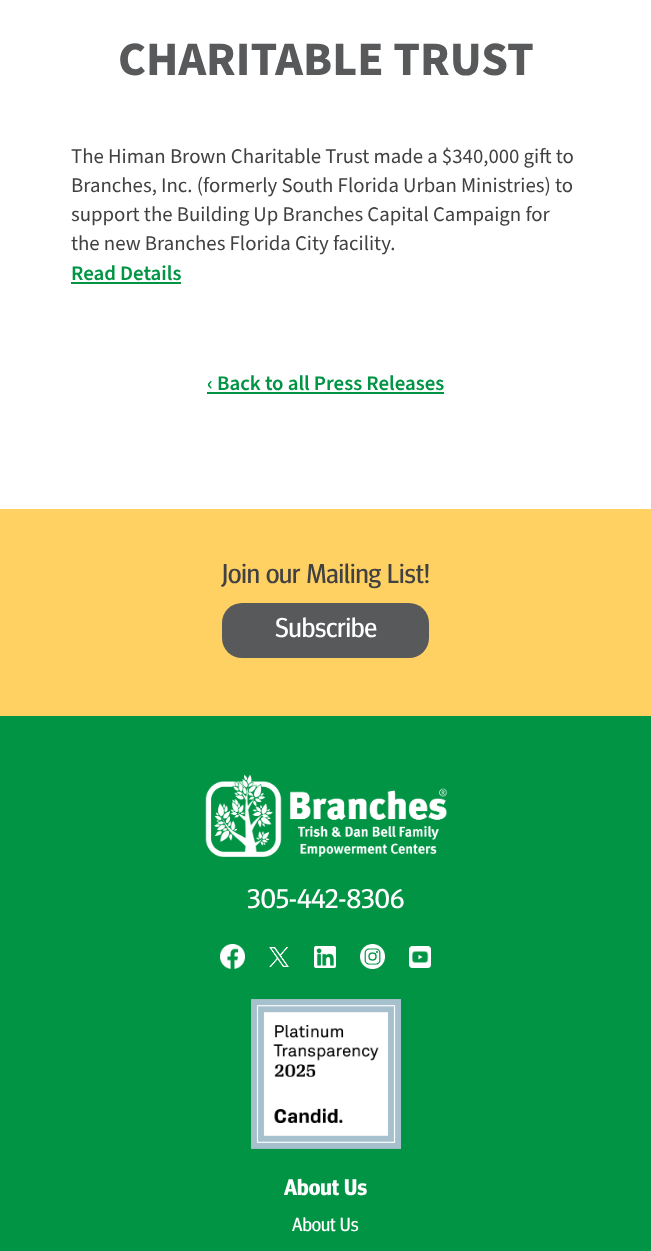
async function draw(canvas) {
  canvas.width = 651
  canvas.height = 1251
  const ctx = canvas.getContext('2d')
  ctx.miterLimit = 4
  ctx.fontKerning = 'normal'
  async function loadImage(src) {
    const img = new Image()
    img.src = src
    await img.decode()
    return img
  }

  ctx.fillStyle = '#fff'
  ctx.fillRect(0, 0, 651, 1251)
  ctx.font = 'bold 48px Source Sans Pro'
  ctx.fillStyle = '#58595b'
  ctx.fillText('CHARITABLE TRUST', 118, 75)
  ctx.font = '20.8px Source Sans Pro'
  ctx.fillStyle = '#414042'
  ctx.fillText('The Himan Brown Charitable Trust made a $340,000 gift to', 71, 163)
  ctx.fillText('Branches, Inc. (formerly South Florida Urban Ministries) to', 71, 192)
  ctx.fillText('support the Building Up Branches Capital Campaign for', 71, 221)
  ctx.fillText('the new Branches Florida City facility.', 71, 250)
  ctx.font = '600 20.8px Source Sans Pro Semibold'
  ctx.fillStyle = '#009444'
  ctx.fillText('Read Details', 71, 280)
  ctx.fillRect(71, 282, 110, 2)
  ctx.fillText('‹ Back to all Press Releases', 207, 390)
  ctx.fillRect(207, 392, 237, 2)
  ctx.fillStyle = '#ffd163'
  ctx.fillRect(0, 509, 651, 207)
  ctx.font = '27.25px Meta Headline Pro'
  ctx.fillStyle = '#414042'
  ctx.fillText('Join our Mailing List!', 222, 583)
  ctx.fillStyle = '#58595b'
  ctx.beginPath()
  ctx.roundRect(222, 603, 207, 55, 20)
  ctx.fill()
  ctx.fillStyle = '#fff'
  ctx.fillText('Subscribe', 275, 637)
  ctx.fillStyle = '#009444'
  ctx.fillRect(0, 716, 651, 535)
  ctx.drawImage(await loadImage('image0.png'), 205, 774, 242, 83)
  ctx.font = '27px Meta Headline Pro'
  ctx.fillStyle = '#fff'
  ctx.fillText('305-442-8306', 247, 908)
  ctx.drawImage(await loadImage('image1.png'), 220, 944, 25, 25)
  ctx.drawImage(await loadImage('image2.png'), 269, 947, 20, 20)
  ctx.drawImage(await loadImage('image3.png'), 314, 946, 22, 22)
  ctx.drawImage(await loadImage('image4.png'), 360, 944, 25, 25)
  ctx.drawImage(await loadImage('image5.png'), 409, 946, 22, 22)
  ctx.drawImage(await loadImage('image6.png'), 251, 999, 150, 150)
  ctx.font = 'bold 22.5px Meta Headline Pro'
  ctx.fillText('About Us', 284, 1195)
  ctx.font = '19px Meta Headline Pro'
  ctx.fillText('About Us', 292, 1231)
}

draw(document.querySelector('canvas'))
